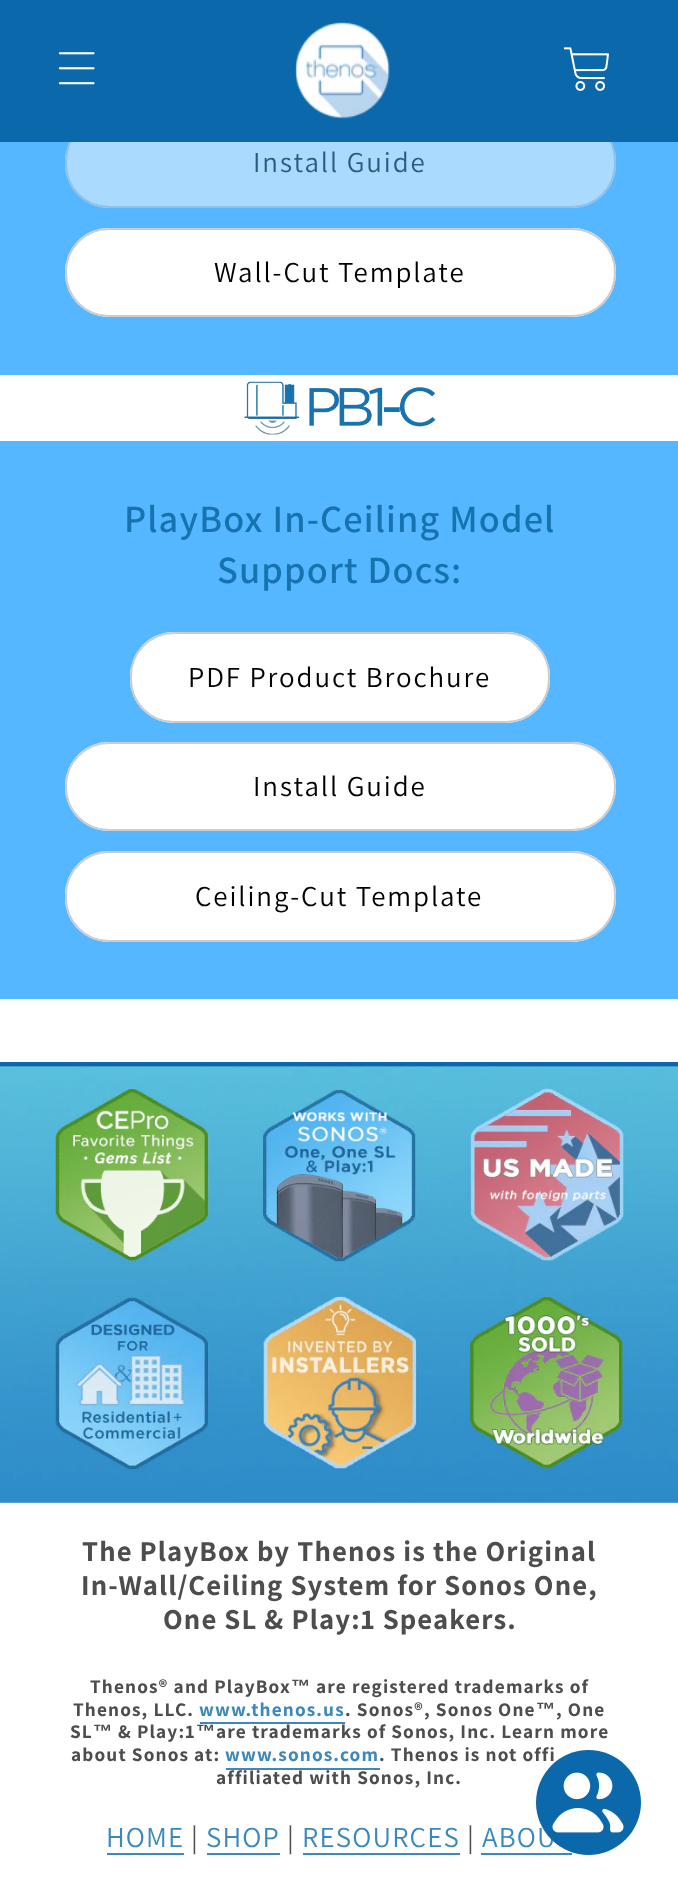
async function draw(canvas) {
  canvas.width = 678
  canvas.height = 1891
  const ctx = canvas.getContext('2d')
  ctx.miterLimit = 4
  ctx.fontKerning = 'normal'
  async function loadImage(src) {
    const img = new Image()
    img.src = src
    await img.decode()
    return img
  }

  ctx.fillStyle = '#fff'
  ctx.fillRect(0, 0, 678, 1891)
  ctx.fillStyle = '#54b7ff'
  ctx.fillRect(0, 142, 678, 233)
  ctx.fillStyle = '#aadbff'
  ctx.beginPath()
  ctx.roundRect(65, 117, 551, 91, 44)
  ctx.fill()
  ctx.beginPath()
  ctx.roundRect(66, 118, 549, 89, 43)
  ctx.strokeStyle = '#aadbff'
  ctx.lineWidth = 2
  ctx.stroke()
  ctx.beginPath()
  ctx.roundRect(66, 118, 549, 89, 43)
  ctx.strokeStyle = '#2a5c8033'
  ctx.stroke()
  ctx.fillStyle = '#0a68ab'
  ctx.fillRect(0, 0, 678, 142)
  ctx.drawImage(await loadImage('image0.png'), 58, 52, 37, 33)
  ctx.drawImage(await loadImage('image1.png'), 295, 22, 95, 97)
  ctx.drawImage(await loadImage('image2.png'), 564, 47, 45, 44)
  ctx.letterSpacing = '1.9px'
  ctx.font = '28.9px Assistant'
  ctx.fillStyle = '#2a5c80'
  ctx.fillText('Install Guide', 253, 172)
  ctx.fillStyle = '#fff'
  ctx.beginPath()
  ctx.roundRect(65, 228, 551, 89, 44)
  ctx.fill()
  ctx.beginPath()
  ctx.roundRect(66, 229, 549, 87, 43)
  ctx.strokeStyle = '#fff'
  ctx.stroke()
  ctx.beginPath()
  ctx.roundRect(66, 229, 549, 87, 43)
  ctx.strokeStyle = '#00000033'
  ctx.stroke()
  ctx.fillStyle = '#000'
  ctx.fillText('Wall-Cut Template', 214, 282)
  ctx.drawImage(await loadImage('image3.png'), 244, 381, 192, 54)
  ctx.fillStyle = '#54b7ff'
  ctx.fillRect(0, 441, 678, 558)
  ctx.letterSpacing = '1.15px'
  ctx.font = '600 38.5px Assistant'
  ctx.fillStyle = '#1773b0'
  ctx.fillText('PlayBox In-Ceiling Model', 124, 532)
  ctx.fillText('Support Docs:', 217, 583)
  ctx.fillStyle = '#fff'
  ctx.beginPath()
  ctx.roundRect(130, 632, 420, 91, 44)
  ctx.fill()
  ctx.beginPath()
  ctx.roundRect(131, 633, 418, 89, 43)
  ctx.strokeStyle = '#fff'
  ctx.stroke()
  ctx.beginPath()
  ctx.roundRect(131, 633, 418, 89, 43)
  ctx.strokeStyle = '#00000033'
  ctx.stroke()
  ctx.letterSpacing = '1.9px'
  ctx.font = '28.9px Assistant'
  ctx.fillStyle = '#000'
  ctx.fillText('PDF Product Brochure', 188, 687)
  ctx.fillStyle = '#fff'
  ctx.beginPath()
  ctx.roundRect(65, 742, 551, 89, 44)
  ctx.fill()
  ctx.beginPath()
  ctx.roundRect(66, 743, 549, 87, 43)
  ctx.strokeStyle = '#fff'
  ctx.stroke()
  ctx.beginPath()
  ctx.roundRect(66, 743, 549, 87, 43)
  ctx.strokeStyle = '#00000033'
  ctx.stroke()
  ctx.fillStyle = '#000'
  ctx.fillText('Install Guide', 253, 796)
  ctx.fillStyle = '#fff'
  ctx.beginPath()
  ctx.roundRect(65, 851, 551, 91, 44)
  ctx.fill()
  ctx.beginPath()
  ctx.roundRect(66, 852, 549, 89, 43)
  ctx.strokeStyle = '#fff'
  ctx.stroke()
  ctx.beginPath()
  ctx.roundRect(66, 852, 549, 89, 43)
  ctx.strokeStyle = '#00000033'
  ctx.stroke()
  ctx.fillStyle = '#000'
  ctx.fillText('Ceiling-Cut Template', 195, 906)
  ctx.drawImage(await loadImage('image4.png'), 0, 1062, 678, 441)
  ctx.letterSpacing = '1.15px'
  ctx.font = 'bold 28.9px Assistant'
  ctx.fillStyle = '#4d4d4d'
  ctx.fillText('The PlayBox by Thenos is the Original', 82, 1561)
  ctx.fillText('In-Wall/Ceiling System for Sonos One,', 81, 1595)
  ctx.fillText('One SL & Play:1 Speakers.', 163, 1629)
  ctx.font = 'bold 19.35px Assistant'
  ctx.fillText('Thenos® and PlayBox', 90, 1693)
  ctx.font = 'bold 19.35px Liberation Sans'
  ctx.fillText('™', 291, 1693)
  ctx.font = 'bold 19.35px Assistant'
  ctx.fillText('are registered trademarks of', 316, 1693)
  ctx.fillText('Thenos, LLC.', 73, 1716)
  ctx.fillStyle = '#3a88bc'
  ctx.fillText('www.thenos.us', 199, 1716)
  ctx.fillRect(200, 1722, 145, 2)
  ctx.fillStyle = '#4d4d4d'
  ctx.fillText('. Sonos®, Sonos One', 345, 1716)
  ctx.font = 'bold 19.35px Liberation Sans'
  ctx.fillText('™', 536, 1716)
  ctx.font = 'bold 19.35px Assistant'
  ctx.fillText(', One', 556, 1716)
  ctx.fillText('SL', 70, 1738)
  ctx.font = 'bold 19.35px Liberation Sans'
  ctx.fillText('™', 93, 1738)
  ctx.font = 'bold 19.35px Assistant'
  ctx.fillText('& Play:1', 118, 1738)
  ctx.font = 'bold 19.35px Liberation Sans'
  ctx.fillText('™', 196, 1738)
  ctx.font = 'bold 19.35px Assistant'
  ctx.fillText('are trademarks of Sonos, Inc. Learn more', 216, 1738)
  ctx.fillText('about Sonos at:', 71, 1761)
  ctx.fillStyle = '#3a88bc'
  ctx.fillText('www.sonos.com', 225, 1761)
  ctx.fillRect(226, 1768, 154, 2)
  ctx.fillStyle = '#4d4d4d'
  ctx.fillText('. Thenos is not offi', 379, 1761)
  ctx.fillText('affiliated with Sonos, Inc.', 216, 1784)
  ctx.font = '28.9px Assistant'
  ctx.fillStyle = '#3a88bc'
  ctx.fillText('HOME', 106, 1847)
  ctx.fillRect(107, 1853, 77, 2)
  ctx.fillStyle = '#4d4d4d'
  ctx.fillText('|', 191, 1847)
  ctx.fillStyle = '#3a88bc'
  ctx.fillText('SHOP', 206, 1847)
  ctx.fillRect(207, 1853, 73, 2)
  ctx.fillStyle = '#4d4d4d'
  ctx.fillText('|', 287, 1847)
  ctx.fillStyle = '#3a88bc'
  ctx.fillText('RESOURCES', 302, 1847)
  ctx.fillRect(303, 1853, 157, 2)
  ctx.fillStyle = '#4d4d4d'
  ctx.fillText('|', 467, 1847)
  ctx.fillStyle = '#3a88bc'
  ctx.fillText('ABOU', 482, 1847)
  ctx.fillRect(481, 1853, 91, 2)
  ctx.fillStyle = '#0a68ab'
  ctx.beginPath()
  ctx.arc(588.5, 1802.5, 52.5, 0, 2 * Math.PI)
  ctx.fill()
  ctx.drawImage(await loadImage('image5.png'), 552, 1772, 72, 61)
}

draw(document.querySelector('canvas'))
